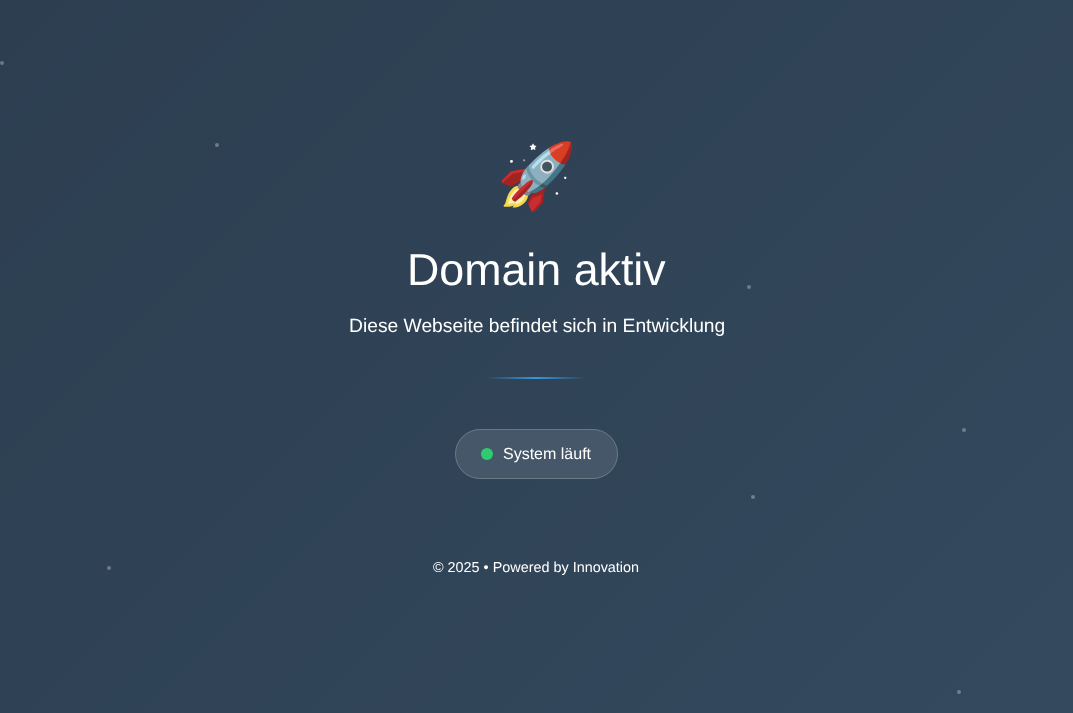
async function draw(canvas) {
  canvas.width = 1073
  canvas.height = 713
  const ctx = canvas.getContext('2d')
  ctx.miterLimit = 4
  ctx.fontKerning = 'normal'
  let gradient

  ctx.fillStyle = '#fff'
  ctx.fillRect(0, 0, 1073, 713)
  gradient = ctx.createLinearGradient(90, -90, 983, 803)
  gradient.addColorStop(0, '#2c3e50')
  gradient.addColorStop(1, '#34495e')
  ctx.fillStyle = gradient
  ctx.fillRect(0, 0, 1073, 713)
  ctx.fillStyle = '#6b7885'
  ctx.beginPath()
  ctx.arc(2, 63, 2, 0, 2 * Math.PI)
  ctx.fill()
  ctx.fillStyle = '#6d7987'
  ctx.beginPath()
  ctx.arc(217, 145, 2, 0, 2 * Math.PI)
  ctx.fill()
  ctx.fillStyle = '#6f7c8a'
  ctx.beginPath()
  ctx.arc(749, 287, 2, 0, 2 * Math.PI)
  ctx.fill()
  ctx.fillStyle = '#707e8c'
  ctx.beginPath()
  ctx.arc(964, 430, 2, 0, 2 * Math.PI)
  ctx.fill()
  ctx.beginPath()
  ctx.arc(753, 497, 2, 0, 2 * Math.PI)
  ctx.fill()
  ctx.fillStyle = '#6d7b88'
  ctx.beginPath()
  ctx.arc(109, 568, 2, 0, 2 * Math.PI)
  ctx.fill()
  ctx.fillStyle = '#707f8e'
  ctx.beginPath()
  ctx.arc(959, 692, 2, 0, 2 * Math.PI)
  ctx.fill()
  ctx.font = '64px Noto Color Emoji'
  ctx.fillStyle = '#fff'
  ctx.fillText('🚀', 497, 198)
  ctx.font = '44.75px Liberation Sans'
  ctx.fillText('Domain aktiv', 407, 285)
  ctx.font = '19.25px Liberation Sans'
  ctx.fillText('Diese Webseite befindet sich in Entwicklung', 349, 332)
  gradient = ctx.createLinearGradient(486, 378, 586, 378)
  gradient.addColorStop(0, '#304457')
  gradient.addColorStop(0.5, '#3498db')
  gradient.addColorStop(1, '#304457')
  ctx.fillStyle = gradient
  ctx.fillRect(486, 377, 100, 2)
  ctx.fillStyle = '#455768'
  ctx.beginPath()
  ctx.roundRect(455, 429, 163, 50, 25)
  ctx.fill()
  ctx.beginPath()
  ctx.roundRect(455.5, 429.5, 162, 49, 24.5)
  ctx.strokeStyle = '#ffffff33'
  ctx.stroke()
  ctx.fillStyle = '#2ecc71'
  ctx.beginPath()
  ctx.arc(487, 454, 6, 0, 2 * Math.PI)
  ctx.fill()
  ctx.font = '16px Liberation Sans'
  ctx.fillStyle = '#fff'
  ctx.fillText('System läuft', 503, 459)
  ctx.font = '14.4px Liberation Sans'
  ctx.fillText('© 2025 • Powered by Innovation', 433, 572)
}

draw(document.querySelector('canvas'))
